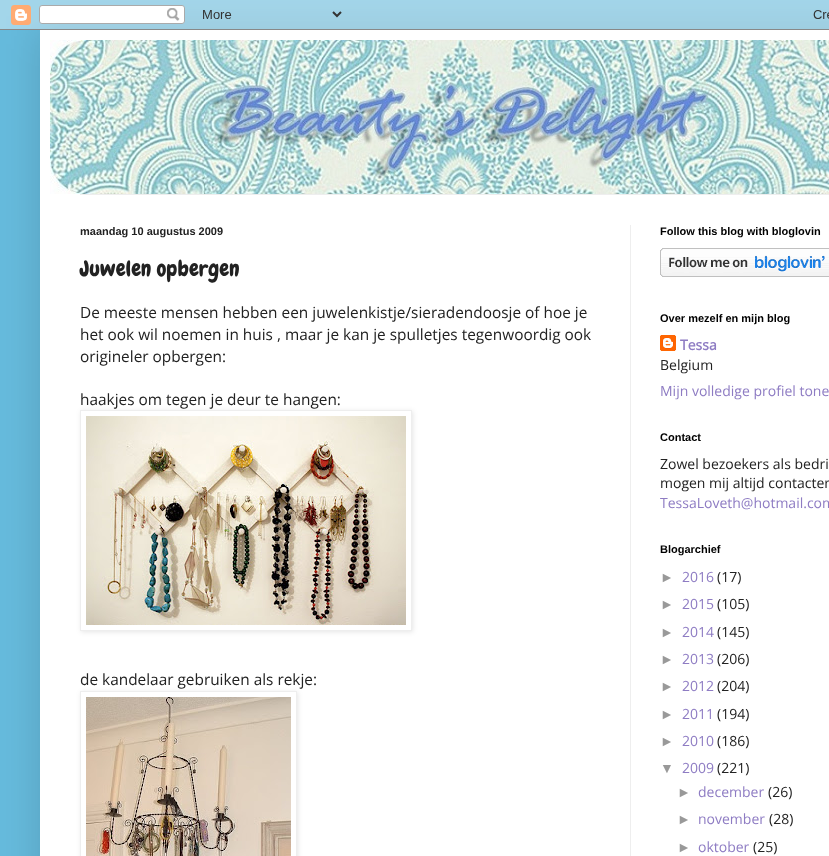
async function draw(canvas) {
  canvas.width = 829
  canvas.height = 856
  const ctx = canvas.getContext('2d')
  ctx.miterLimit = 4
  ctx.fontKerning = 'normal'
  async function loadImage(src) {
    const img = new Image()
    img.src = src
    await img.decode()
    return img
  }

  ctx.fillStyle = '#6bd'
  ctx.fillRect(0, 0, 829, 856)
  ctx.fillStyle = '#00000026'
  ctx.filter = 'blur(20px)'
  ctx.beginPath()
  ctx.rect(40, 30, 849, 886)
  ctx.fill()
  ctx.filter = 'none'
  ctx.drawImage(await loadImage('image0.png'), 0, 0, 829, 30)
  ctx.fillStyle = '#fff'
  ctx.fillRect(40, 30, 789, 826)
  ctx.drawImage(await loadImage('image1.png'), 50, 40, 779, 154)
  ctx.fillStyle = '#eee'
  ctx.fillRect(80, 194, 749, 1)
  ctx.fillRect(630, 225, 1, 631)
  ctx.font = 'bold 11px Liberation Sans'
  ctx.fillStyle = '#222'
  ctx.fillText('maandag 10 augustus 2009', 80, 235)
  ctx.font = '22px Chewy'
  ctx.fillText('Juwelen opbergen', 80, 276)
  ctx.font = '15.4px Open Sans'
  ctx.fillText('De meeste mensen hebben een juwelenkistje/sieradendoosje of hoe je', 80, 318)
  ctx.fillText('het ook wil noemen in huis , maar je kan je spulletjes tegenwoordig ook', 80, 340)
  ctx.fillText('origineler opbergen:', 80, 362)
  ctx.fillText('haakjes om tegen je deur te hangen:', 80, 405)
  ctx.save()
  ctx.beginPath()
  ctx.moveTo(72, 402)
  ctx.lineTo(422, 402)
  ctx.lineTo(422, 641)
  ctx.lineTo(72, 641)
  ctx.closePath()
  ctx.moveTo(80, 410)
  ctx.lineTo(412, 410)
  ctx.lineTo(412, 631)
  ctx.lineTo(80, 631)
  ctx.closePath()
  ctx.clip('evenodd')
  ctx.fillStyle = '#0000001a'
  ctx.filter = 'blur(2.5px)'
  ctx.beginPath()
  ctx.rect(81, 411, 332, 221)
  ctx.fill()
  ctx.filter = 'none'
  ctx.restore()
  ctx.strokeStyle = '#eee'
  ctx.strokeRect(80.5, 410.5, 331, 220)
  ctx.drawImage(await loadImage('image2.png'), 86, 416, 320, 209)
  ctx.fillText('de kandelaar gebruiken als rekje:', 80, 685)
  ctx.save()
  ctx.beginPath()
  ctx.moveTo(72, 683)
  ctx.lineTo(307, 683)
  ctx.lineTo(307, 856)
  ctx.lineTo(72, 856)
  ctx.closePath()
  ctx.moveTo(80, 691)
  ctx.lineTo(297, 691)
  ctx.lineTo(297, 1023)
  ctx.lineTo(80, 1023)
  ctx.closePath()
  ctx.clip('evenodd')
  ctx.fillStyle = '#0000001a'
  ctx.filter = 'blur(2.5px)'
  ctx.beginPath()
  ctx.rect(81, 692, 217, 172)
  ctx.fill()
  ctx.filter = 'none'
  ctx.restore()
  ctx.strokeRect(80.5, 691.5, 216, 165)
  ctx.drawImage(await loadImage('image3.png'), 86, 697, 205, 159)
  ctx.font = 'bold 11px Liberation Sans'
  ctx.fillStyle = '#000'
  ctx.fillText('Follow this blog with bloglovin', 660, 235)
  ctx.drawImage(await loadImage('image4.png'), 660, 248, 169, 29)
  ctx.fillText('Over mezelf en mijn blog', 660, 322)
  ctx.drawImage(await loadImage('image5.png'), 660, 335, 16, 16)
  ctx.font = 'bold 14px Open Sans'
  ctx.fillStyle = '#8e7cc3'
  ctx.fillText('Tessa', 680, 350)
  ctx.font = '14px Open Sans'
  ctx.fillStyle = '#222'
  ctx.fillText('Belgium', 660, 370)
  ctx.fillStyle = '#8e7cc3'
  ctx.fillText('Mijn volledige profiel tone', 660, 396)
  ctx.font = 'bold 11px Liberation Sans'
  ctx.fillStyle = '#000'
  ctx.fillText('Contact', 660, 441)
  ctx.font = '14px Open Sans'
  ctx.fillStyle = '#222'
  ctx.fillText('Zowel bezoekers als bedri', 660, 469)
  ctx.fillText('mogen mij altijd contacter', 660, 488)
  ctx.fillStyle = '#8e7cc3'
  ctx.fillText('TessaLoveth@hotmail.com', 660, 508)
  ctx.font = 'bold 11px Liberation Sans'
  ctx.fillStyle = '#000'
  ctx.fillText('Blogarchief', 660, 553)
  ctx.font = '14px Liberation Sans'
  ctx.fillStyle = '#999'
  ctx.fillText('►', 660, 582)
  ctx.font = '14px Open Sans'
  ctx.fillStyle = '#8e7cc3'
  ctx.fillText('2016', 682, 582)
  ctx.fillStyle = '#222'
  ctx.fillText('(17)', 717, 582)
  ctx.font = '14px Liberation Sans'
  ctx.fillStyle = '#999'
  ctx.fillText('►', 660, 609)
  ctx.font = '14px Open Sans'
  ctx.fillStyle = '#8e7cc3'
  ctx.fillText('2015', 682, 609)
  ctx.fillStyle = '#222'
  ctx.fillText('(105)', 717, 609)
  ctx.font = '14px Liberation Sans'
  ctx.fillStyle = '#999'
  ctx.fillText('►', 660, 637)
  ctx.font = '14px Open Sans'
  ctx.fillStyle = '#8e7cc3'
  ctx.fillText('2014', 682, 637)
  ctx.fillStyle = '#222'
  ctx.fillText('(145)', 717, 637)
  ctx.font = '14px Liberation Sans'
  ctx.fillStyle = '#999'
  ctx.fillText('►', 660, 664)
  ctx.font = '14px Open Sans'
  ctx.fillStyle = '#8e7cc3'
  ctx.fillText('2013', 682, 664)
  ctx.fillStyle = '#222'
  ctx.fillText('(206)', 717, 664)
  ctx.font = '14px Liberation Sans'
  ctx.fillStyle = '#999'
  ctx.fillText('►', 660, 691)
  ctx.font = '14px Open Sans'
  ctx.fillStyle = '#8e7cc3'
  ctx.fillText('2012', 682, 691)
  ctx.fillStyle = '#222'
  ctx.fillText('(204)', 717, 691)
  ctx.font = '14px Liberation Sans'
  ctx.fillStyle = '#999'
  ctx.fillText('►', 660, 719)
  ctx.font = '14px Open Sans'
  ctx.fillStyle = '#8e7cc3'
  ctx.fillText('2011', 682, 719)
  ctx.fillStyle = '#222'
  ctx.fillText('(194)', 717, 719)
  ctx.font = '14px Liberation Sans'
  ctx.fillStyle = '#999'
  ctx.fillText('►', 660, 746)
  ctx.font = '14px Open Sans'
  ctx.fillStyle = '#8e7cc3'
  ctx.fillText('2010', 682, 746)
  ctx.fillStyle = '#222'
  ctx.fillText('(186)', 717, 746)
  ctx.font = '14px Liberation Sans'
  ctx.fillStyle = '#999'
  ctx.fillText('▼', 660, 773)
  ctx.font = '14px Open Sans'
  ctx.fillStyle = '#8e7cc3'
  ctx.fillText('2009', 682, 773)
  ctx.fillStyle = '#222'
  ctx.fillText('(221)', 717, 773)
  ctx.font = '14px Liberation Sans'
  ctx.fillStyle = '#999'
  ctx.fillText('►', 677, 797)
  ctx.font = '14px Open Sans'
  ctx.fillStyle = '#8e7cc3'
  ctx.fillText('december', 698, 797)
  ctx.fillStyle = '#222'
  ctx.fillText('(26)', 768, 797)
  ctx.font = '14px Liberation Sans'
  ctx.fillStyle = '#999'
  ctx.fillText('►', 677, 824)
  ctx.font = '14px Open Sans'
  ctx.fillStyle = '#8e7cc3'
  ctx.fillText('november', 698, 824)
  ctx.fillStyle = '#222'
  ctx.fillText('(28)', 769, 824)
  ctx.font = '14px Liberation Sans'
  ctx.fillStyle = '#999'
  ctx.fillText('►', 677, 852)
  ctx.font = '14px Open Sans'
  ctx.fillStyle = '#8e7cc3'
  ctx.fillText('oktober', 698, 852)
  ctx.fillStyle = '#222'
  ctx.fillText('(25)', 753, 852)
}

draw(document.querySelector('canvas'))
